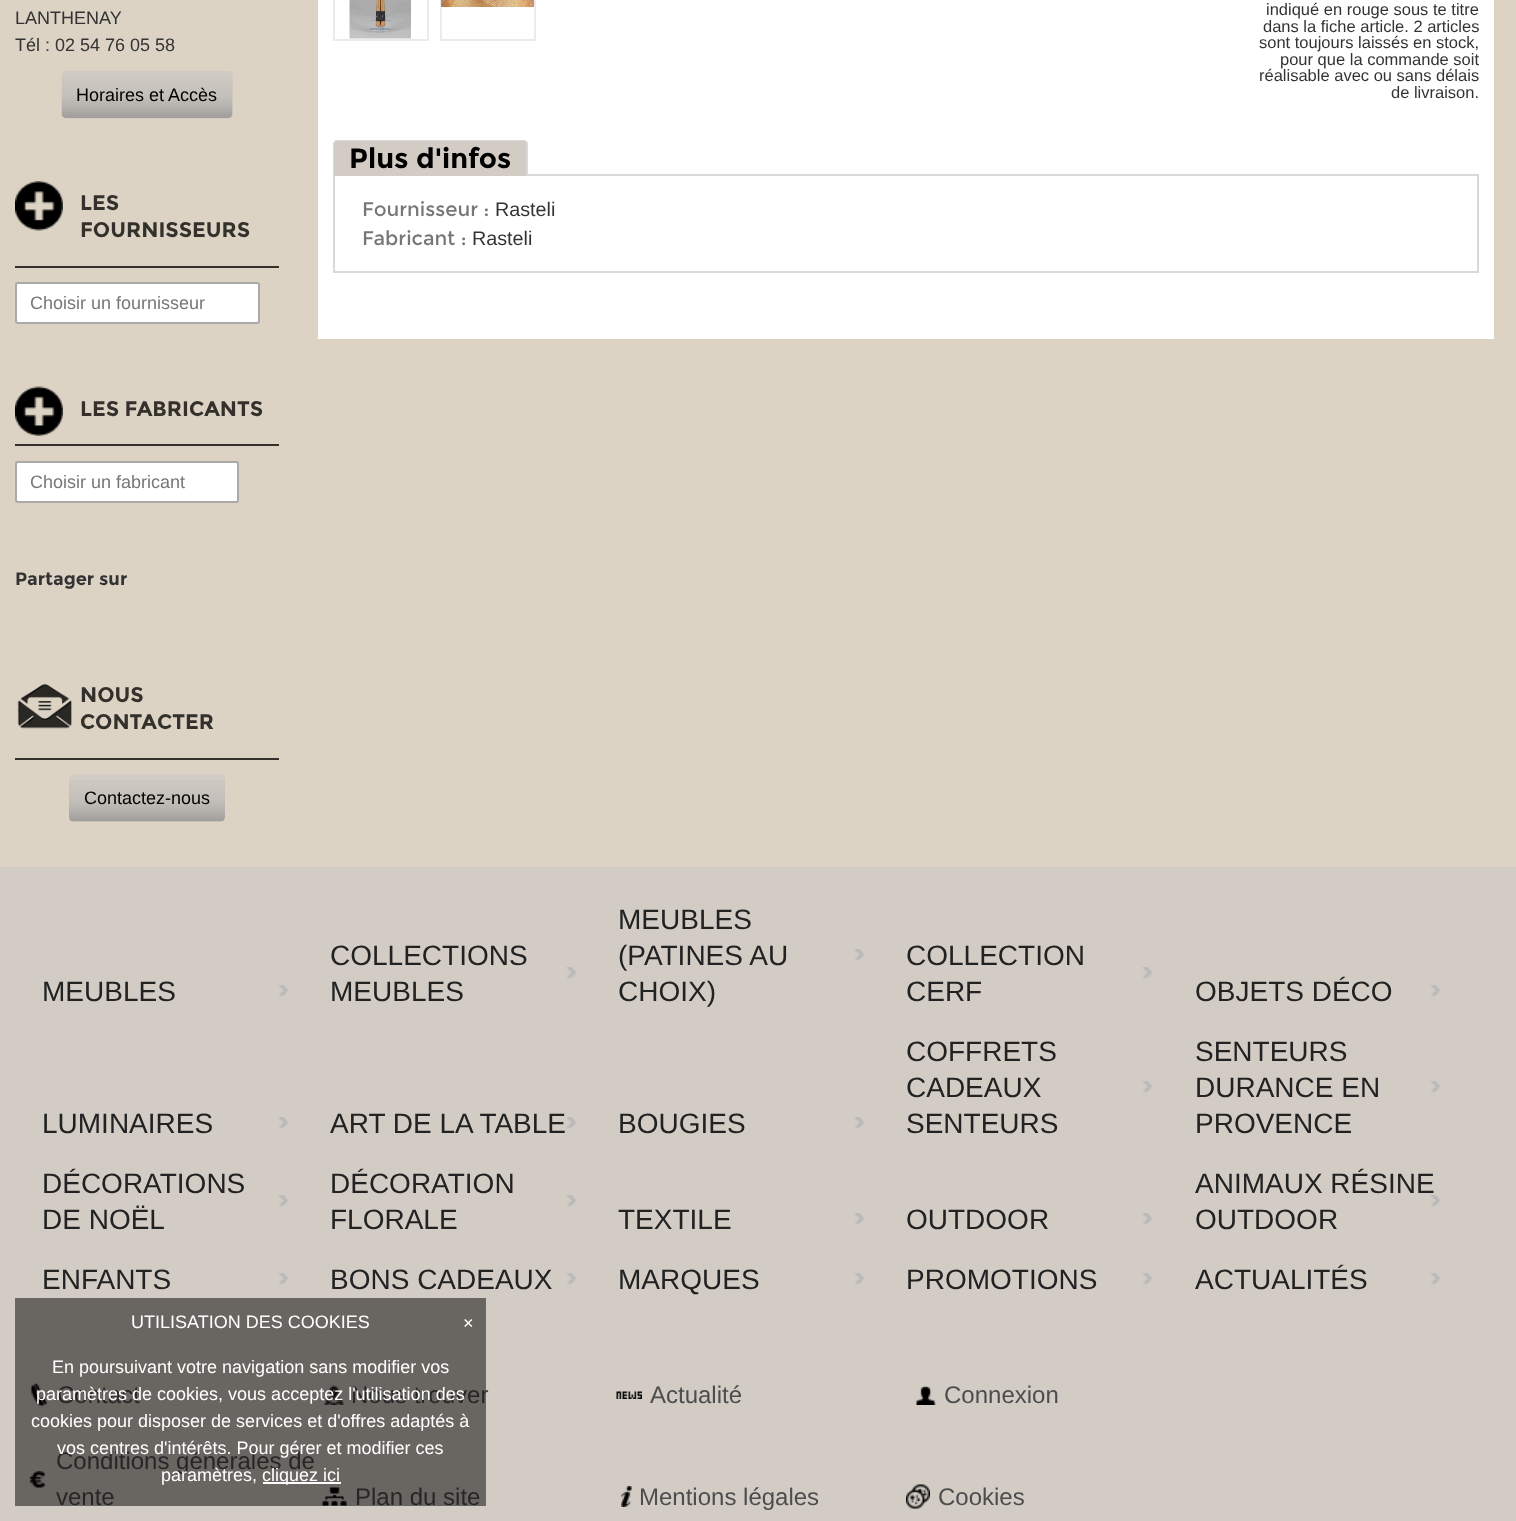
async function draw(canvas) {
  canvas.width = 1516
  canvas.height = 1521
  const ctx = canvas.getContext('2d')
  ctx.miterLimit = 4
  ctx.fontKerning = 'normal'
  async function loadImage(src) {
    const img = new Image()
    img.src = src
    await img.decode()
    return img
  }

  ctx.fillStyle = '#dcd3c4'
  ctx.fillRect(0, 0, 1516, 1521)
  ctx.font = '18px Liberation Sans'
  ctx.fillStyle = '#333'
  ctx.fillText('LANTHENAY', 15, 24)
  ctx.fillText('Tél : 02 54 76 05 58', 15, 51)
  ctx.fillStyle = '#d2ccc5'
  ctx.beginPath()
  ctx.roundRect(62, 71, 171, 48, 5)
  ctx.fill()
  ctx.drawImage(await loadImage('image0.png'), 61, 71, 172, 47)
  ctx.fillStyle = '#000'
  ctx.fillText('Horaires et Accès', 76, 101)
  ctx.drawImage(await loadImage('image1.png'), 15, 181, 48, 50)
  ctx.fillStyle = '#34312d'
  ctx.fillRect(15, 266, 264, 2)
  ctx.font = 'bold 21px Montserrat'
  ctx.fillText('LES', 80, 210)
  ctx.fillText('FOURNISSEURS', 80, 237)
  ctx.fillStyle = '#fff'
  ctx.beginPath()
  ctx.roundRect(16, 283, 243, 40, 2)
  ctx.fill()
  ctx.strokeStyle = '#aaa'
  ctx.lineWidth = 2
  ctx.stroke()
  ctx.font = '18px Liberation Sans'
  ctx.fillStyle = '#777'
  ctx.fillText('Choisir un fournisseur', 30, 309)
  ctx.drawImage(await loadImage('image2.png'), 15, 386, 48, 50)
  ctx.fillStyle = '#34312d'
  ctx.fillRect(15, 444, 264, 2)
  ctx.font = 'bold 21px Montserrat'
  ctx.fillText('LES FABRICANTS', 80, 416)
  ctx.fillStyle = '#fff'
  ctx.beginPath()
  ctx.roundRect(16, 462, 222, 40, 2)
  ctx.fill()
  ctx.stroke()
  ctx.font = '18px Liberation Sans'
  ctx.fillStyle = '#777'
  ctx.fillText('Choisir un fabricant', 30, 488)
  ctx.font = 'bold 18px Montserrat'
  ctx.fillStyle = '#333'
  ctx.fillText('Partager sur', 15, 585)
  ctx.drawImage(await loadImage('image3.png'), 17, 684, 55, 45)
  ctx.fillStyle = '#34312d'
  ctx.fillRect(15, 758, 264, 2)
  ctx.font = 'bold 21px Montserrat'
  ctx.fillText('NOUS', 80, 702)
  ctx.fillText('CONTACTER', 80, 729)
  ctx.fillStyle = '#d2ccc5'
  ctx.beginPath()
  ctx.roundRect(69, 774, 156, 48, 5)
  ctx.fill()
  ctx.drawImage(await loadImage('image4.png'), 69, 780, 156, 42)
  ctx.font = '18px Liberation Sans'
  ctx.fillStyle = '#000'
  ctx.fillText('Contactez-nous', 84, 804)
  ctx.fillStyle = '#fff'
  ctx.fillRect(318, 0, 1176, 339)
  ctx.strokeStyle = '#ebebeb'
  ctx.strokeRect(334, -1, 94, 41)
  ctx.drawImage(await loadImage('image5.png'), 349, 0, 62, 39)
  ctx.strokeRect(441, -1, 94, 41)
  ctx.drawImage(await loadImage('image6.png'), 441, 0, 93, 7)
  ctx.font = '16.5px Liberation Sans'
  ctx.fillStyle = '#333'
  ctx.fillText('indiqué en rouge sous te titre', 1266, 15)
  ctx.fillText('dans la fiche article. 2 articles', 1263, 32)
  ctx.fillText('sont toujours laissés en stock,', 1259, 48)
  ctx.fillText('pour que la commande soit', 1280, 65)
  ctx.fillText('réalisable avec ou sans délais', 1259, 81)
  ctx.fillText('de livraison.', 1391, 98)
  ctx.strokeStyle = '#d9d9d9'
  ctx.strokeRect(334, 175, 1144, 97)
  ctx.fillStyle = '#d2ccc5'
  ctx.beginPath()
  ctx.roundRect(333, 140, 195, 36, [5, 5, 0, 0])
  ctx.fill()
  ctx.fillStyle = '#d9d9d9'
  ctx.beginPath()
  ctx.moveTo(338, 140)
  ctx.lineTo(524, 140)
  ctx.bezierCurveTo(526, 140, 528, 142, 528, 144)
  ctx.lineTo(528, 176)
  ctx.lineTo(333, 176)
  ctx.lineTo(333, 144)
  ctx.bezierCurveTo(333, 142, 335, 140, 338, 140)
  ctx.closePath()
  ctx.moveTo(338, 141)
  ctx.lineTo(524, 141)
  ctx.bezierCurveTo(525, 141, 526, 142, 526, 144)
  ctx.lineTo(526, 176)
  ctx.lineTo(334, 176)
  ctx.lineTo(334, 144)
  ctx.bezierCurveTo(334, 142, 336, 141, 338, 141)
  ctx.closePath()
  ctx.fill('evenodd')
  ctx.font = 'bold 28px Montserrat'
  ctx.fillStyle = '#000'
  ctx.fillText('Plus d\'infos', 349, 168)
  ctx.font = '19.75px Montserrat'
  ctx.fillStyle = '#777'
  ctx.fillText('Fournisseur :', 362, 216)
  ctx.font = '19.75px Liberation Sans'
  ctx.fillStyle = '#333'
  ctx.fillText('Rasteli', 495, 216)
  ctx.font = '19.75px Montserrat'
  ctx.fillStyle = '#777'
  ctx.fillText('Fabricant :', 362, 245)
  ctx.font = '19.75px Liberation Sans'
  ctx.fillStyle = '#333'
  ctx.fillText('Rasteli', 472, 245)
  ctx.fillStyle = '#d2ccc5'
  ctx.fillRect(0, 867, 1516, 654)
  ctx.drawImage(await loadImage('image9.png'), 30, 1382, 18, 25)
  ctx.font = '24px Liberation Sans'
  ctx.fillStyle = '#4d4d4d'
  ctx.fillText('Contact', 57, 1403)
  ctx.drawImage(await loadImage('image10.png'), 324, 1385, 20, 20)
  ctx.fillText('Nous trouver', 351, 1403)
  ctx.drawImage(await loadImage('image13.png'), 30, 1471, 15, 17)
  ctx.fillText('Conditions générales de', 56, 1469)
  ctx.fillText('vente', 56, 1505)
  ctx.drawImage(await loadImage('image14.png'), 322, 1487, 25, 19)
  ctx.fillText('Plan du site', 355, 1505)
  ctx.fillStyle = '#00000080'
  ctx.fillRect(15, 1298, 471, 208)
  ctx.font = '18px Liberation Sans'
  ctx.fillStyle = '#fff'
  ctx.fillText('UTILISATION DES COOKIES', 131, 1328)
  ctx.fillText('×', 463, 1329)
  ctx.fillText('En poursuivant votre navigation sans modifier vos', 52, 1373)
  ctx.fillText('paramètres de cookies, vous acceptez l\'utilisation des', 36, 1400)
  ctx.fillText('cookies pour disposer de services et d\'offres adaptés à', 31, 1427)
  ctx.fillText('vos centres d\'intérêts. Pour gérer et modifier ces', 57, 1454)
  ctx.fillText('paramètres,', 161, 1481)
  ctx.fillRect(263, 1482, 78, 2)
  ctx.fillText('cliquez ici', 262, 1481)
  ctx.drawImage(await loadImage('image7.png'), 278, 985, 11, 12)
  ctx.font = '28px Liberation Sans'
  ctx.fillStyle = '#222'
  ctx.fillText('MEUBLES', 42, 1001)
  ctx.drawImage(await loadImage('image8.png'), 566, 967, 11, 12)
  ctx.fillText('COLLECTIONS', 330, 965)
  ctx.fillText('MEUBLES', 330, 1001)
  ctx.drawImage(await loadImage('image7.png'), 854, 949, 11, 12)
  ctx.fillText('MEUBLES', 618, 929)
  ctx.fillText('(PATINES AU', 618, 965)
  ctx.fillText('CHOIX)', 618, 1001)
  ctx.drawImage(await loadImage('image8.png'), 1142, 967, 11, 12)
  ctx.fillText('COLLECTION', 906, 965)
  ctx.fillText('CERF', 906, 1001)
  ctx.drawImage(await loadImage('image8.png'), 1430, 985, 11, 12)
  ctx.fillText('OBJETS DÉCO', 1195, 1001)
  ctx.drawImage(await loadImage('image7.png'), 278, 1117, 11, 12)
  ctx.fillText('LUMINAIRES', 42, 1133)
  ctx.drawImage(await loadImage('image8.png'), 566, 1117, 11, 12)
  ctx.fillText('ART DE LA TABLE', 330, 1133)
  ctx.drawImage(await loadImage('image7.png'), 854, 1117, 11, 12)
  ctx.fillText('BOUGIES', 618, 1133)
  ctx.drawImage(await loadImage('image8.png'), 1142, 1081, 11, 12)
  ctx.fillText('COFFRETS', 906, 1061)
  ctx.fillText('CADEAUX', 906, 1097)
  ctx.fillText('SENTEURS', 906, 1133)
  ctx.drawImage(await loadImage('image8.png'), 1430, 1081, 11, 12)
  ctx.fillText('SENTEURS', 1195, 1061)
  ctx.fillText('DURANCE EN', 1195, 1097)
  ctx.fillText('PROVENCE', 1195, 1133)
  ctx.drawImage(await loadImage('image7.png'), 278, 1195, 11, 12)
  ctx.fillText('DÉCORATIONS', 42, 1193)
  ctx.fillText('DE NOËL', 42, 1229)
  ctx.drawImage(await loadImage('image8.png'), 566, 1195, 11, 12)
  ctx.fillText('DÉCORATION', 330, 1193)
  ctx.fillText('FLORALE', 330, 1229)
  ctx.drawImage(await loadImage('image7.png'), 854, 1213, 11, 12)
  ctx.fillText('TEXTILE', 618, 1229)
  ctx.drawImage(await loadImage('image8.png'), 1142, 1213, 11, 12)
  ctx.fillText('OUTDOOR', 906, 1229)
  ctx.drawImage(await loadImage('image8.png'), 1430, 1195, 11, 12)
  ctx.fillText('ANIMAUX RÉSINE', 1195, 1193)
  ctx.fillText('OUTDOOR', 1195, 1229)
  ctx.drawImage(await loadImage('image7.png'), 278, 1273, 11, 12)
  ctx.fillText('ENFANTS', 42, 1289)
  ctx.drawImage(await loadImage('image8.png'), 566, 1273, 11, 12)
  ctx.fillText('BONS CADEAUX', 330, 1289)
  ctx.drawImage(await loadImage('image7.png'), 854, 1273, 11, 12)
  ctx.fillText('MARQUES', 618, 1289)
  ctx.drawImage(await loadImage('image8.png'), 1142, 1273, 11, 12)
  ctx.fillText('PROMOTIONS', 906, 1289)
  ctx.drawImage(await loadImage('image8.png'), 1430, 1273, 11, 12)
  ctx.fillText('ACTUALITÉS', 1195, 1289)
  ctx.drawImage(await loadImage('image11.png'), 616, 1391, 26, 8)
  ctx.font = '24px Liberation Sans'
  ctx.fillStyle = '#4d4d4d'
  ctx.fillText('Actualité', 650, 1403)
  ctx.drawImage(await loadImage('image12.png'), 916, 1385, 20, 20)
  ctx.fillText('Connexion', 944, 1403)
  ctx.drawImage(await loadImage('image15.png'), 621, 1486, 11, 21)
  ctx.fillText('Mentions légales', 639, 1505)
  ctx.drawImage(await loadImage('image16.png'), 906, 1484, 24, 25)
  ctx.fillText('Cookies', 938, 1505)
}

draw(document.querySelector('canvas'))
